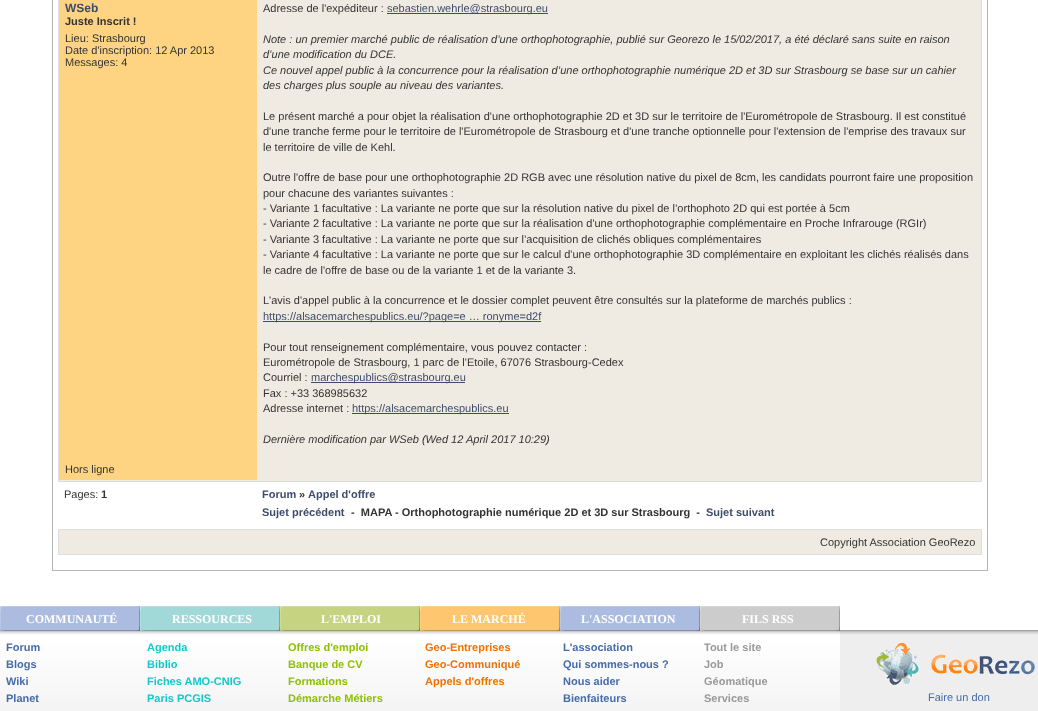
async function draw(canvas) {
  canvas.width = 1038
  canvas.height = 711
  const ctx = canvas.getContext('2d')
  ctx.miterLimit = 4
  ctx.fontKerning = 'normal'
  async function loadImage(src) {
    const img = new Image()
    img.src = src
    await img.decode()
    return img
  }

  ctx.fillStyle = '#fff'
  ctx.fillRect(0, 0, 1038, 711)
  ctx.strokeStyle = '#b7b6b6'
  ctx.strokeRect(52.5, -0.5, 935, 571)
  ctx.fillStyle = '#f0ebe2'
  ctx.beginPath()
  ctx.rect(58.5, -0.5, 923, 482)
  ctx.fill()
  ctx.strokeStyle = '#ddd'
  ctx.stroke()
  ctx.fillStyle = '#fed483'
  ctx.fillRect(59, 0, 198, 480)
  ctx.font = 'bold 12px Liberation Sans'
  ctx.fillStyle = '#3f4c6b'
  ctx.fillText('WSeb', 65, 12)
  ctx.font = 'bold 11px Liberation Sans'
  ctx.fillStyle = '#333'
  ctx.fillText('Juste Inscrit !', 65, 25)
  ctx.font = '11px Liberation Sans'
  ctx.fillText('Lieu: Strasbourg', 65, 42)
  ctx.fillText('Date d\'inscription: 12 Apr 2013', 65, 54)
  ctx.fillText('Messages: 4', 65, 66)
  ctx.fillText('Adresse de l\'expéditeur :', 263, 12)
  ctx.fillStyle = '#3f4c6b'
  ctx.fillRect(387, 13, 161, 1)
  ctx.fillText('sebastien.wehrle@strasbourg.eu', 387, 12)
  ctx.font = 'italic 11px Liberation Sans'
  ctx.fillStyle = '#333'
  ctx.fillText('Note : un premier marché public de réalisation d’une orthophotographie, publié sur Georezo le 15/02/2017, a été déclaré sans suite en raison', 263, 43)
  ctx.fillText('d’une modification du DCE.', 263, 58)
  ctx.fillText('Ce nouvel appel public à la concurrence pour la réalisation d’une orthophotographie numérique 2D et 3D sur Strasbourg se base sur un cahier', 263, 74)
  ctx.fillText('des charges plus souple au niveau des variantes.', 263, 89)
  ctx.font = '11px Liberation Sans'
  ctx.fillText('Le présent marché a pour objet la réalisation d\'une orthophotographie 2D et 3D sur le territoire de l\'Eurométropole de Strasbourg. Il est constitué', 263, 120)
  ctx.fillText('d\'une tranche ferme pour le territoire de l\'Eurométropole de Strasbourg et d\'une tranche optionnelle pour l\'extension de l\'emprise des travaux sur', 263, 135)
  ctx.fillText('le territoire de ville de Kehl.', 263, 151)
  ctx.fillText('Outre l\'offre de base pour une orthophotographie 2D RGB avec une résolution native du pixel de 8cm, les candidats pourront faire une proposition', 263, 181)
  ctx.fillText('pour chacune des variantes suivantes :', 263, 197)
  ctx.fillText('- Variante 1 facultative : La variante ne porte que sur la résolution native du pixel de l’orthophoto 2D qui est portée à 5cm', 263, 212)
  ctx.fillText('- Variante 2 facultative : La variante ne porte que sur la réalisation d\'une orthophotographie complémentaire en Proche Infrarouge (RGIr)', 263, 227)
  ctx.fillText('- Variante 3 facultative : La variante ne porte que sur l’acquisition de clichés obliques complémentaires', 263, 243)
  ctx.fillText('- Variante 4 facultative : La variante ne porte que sur le calcul d\'une orthophotographie 3D complémentaire en exploitant les clichés réalisés dans', 263, 258)
  ctx.fillText('le cadre de l\'offre de base ou de la variante 1 et de la variante 3.', 263, 274)
  ctx.fillText('L\'avis d\'appel public à la concurrence et le dossier complet peuvent être consultés sur la plateforme de marchés publics :', 263, 304)
  ctx.fillStyle = '#3f4c6b'
  ctx.fillRect(263, 321, 278, 1)
  ctx.fillText('https://alsacemarchespublics.eu/?page=e … ronyme=d2f', 263, 320)
  ctx.fillStyle = '#333'
  ctx.fillText('Pour tout renseignement complémentaire, vous pouvez contacter :', 263, 351)
  ctx.fillText('Eurométropole de Strasbourg, 1 parc de l\'Etoile, 67076 Strasbourg-Cedex', 263, 366)
  ctx.fillText('Courriel :', 263, 381)
  ctx.fillStyle = '#3f4c6b'
  ctx.fillRect(311, 382, 154, 1)
  ctx.fillText('marchespublics@strasbourg.eu', 311, 381)
  ctx.fillStyle = '#333'
  ctx.fillText('Fax : +33 368985632', 263, 397)
  ctx.fillText('Adresse internet :', 263, 412)
  ctx.fillStyle = '#3f4c6b'
  ctx.fillRect(352, 413, 157, 1)
  ctx.fillText('https://alsacemarchespublics.eu', 352, 412)
  ctx.font = 'italic 11px Liberation Sans'
  ctx.fillStyle = '#333'
  ctx.fillText('Dernière modification par WSeb (Wed 12 April 2017 10:29)', 263, 443)
  ctx.font = '11px Liberation Sans'
  ctx.fillText('Hors ligne', 65, 473)
  ctx.fillText('Pages:', 64, 498)
  ctx.font = 'bold 11px Liberation Sans'
  ctx.fillText('1', 101, 498)
  ctx.fillStyle = '#3f4c6b'
  ctx.fillText('Forum', 262, 498)
  ctx.fillStyle = '#333'
  ctx.fillText('»', 299, 498)
  ctx.fillStyle = '#3f4c6b'
  ctx.fillText('Appel d\'offre', 308, 498)
  ctx.fillText('Sujet précédent', 262, 516)
  ctx.fillStyle = '#333'
  ctx.fillText('-  MAPA - Orthophotographie numérique 2D et 3D sur Strasbourg  -', 351, 516)
  ctx.fillStyle = '#3f4c6b'
  ctx.fillText('Sujet suivant', 706, 516)
  ctx.fillStyle = '#f0ebe2'
  ctx.beginPath()
  ctx.rect(58.5, 529.5, 923, 25)
  ctx.fill()
  ctx.stroke()
  ctx.font = '11px Liberation Sans'
  ctx.fillStyle = '#333'
  ctx.fillText('Copyright Association GeoRezo', 820, 546)
  ctx.drawImage(await loadImage('image0.png'), 840, 630, 198, 81)
  ctx.drawImage(await loadImage('image1.png'), 0, 606, 840, 105)
  ctx.font = 'bold 12px Liberation Serif'
  ctx.fillStyle = '#fff'
  ctx.fillText('COMMUNAUTÉ', 26, 623)
  ctx.fillText('RESSOURCES', 172, 623)
  ctx.fillText('L\'EMPLOI', 321, 623)
  ctx.fillText('LE MARCHÉ', 452, 623)
  ctx.fillText('L\'ASSOCIATION', 581, 623)
  ctx.fillText('FILS RSS', 742, 623)
  ctx.font = 'bold 11px Liberation Sans'
  ctx.fillStyle = '#456baa'
  ctx.fillText('Forum', 6, 651)
  ctx.fillText('Blogs', 6, 668)
  ctx.fillText('Wiki', 6, 685)
  ctx.fillText('Planet', 6, 702)
  ctx.fillStyle = '#13c8ca'
  ctx.fillText('Agenda', 147, 651)
  ctx.fillText('Biblio', 147, 668)
  ctx.fillText('Fiches AMO-CNIG', 147, 685)
  ctx.fillText('Paris PCGIS', 147, 702)
  ctx.fillStyle = '#8fc002'
  ctx.fillText('Offres d\'emploi', 288, 651)
  ctx.fillText('Banque de CV', 288, 668)
  ctx.fillText('Formations', 288, 685)
  ctx.fillText('Démarche Métiers', 288, 702)
  ctx.fillStyle = '#ef7103'
  ctx.fillText('Geo-Entreprises', 425, 651)
  ctx.fillText('Geo-Communiqué', 425, 668)
  ctx.fillText('Appels d\'offres', 425, 685)
  ctx.fillStyle = '#456baa'
  ctx.fillText('L\'association', 563, 651)
  ctx.fillText('Qui sommes-nous ?', 563, 668)
  ctx.fillText('Nous aider', 563, 685)
  ctx.fillText('Bienfaiteurs', 563, 702)
  ctx.fillStyle = '#999'
  ctx.fillText('Tout le site', 704, 651)
  ctx.fillText('Job', 704, 668)
  ctx.fillText('Géomatique', 704, 685)
  ctx.fillText('Services', 704, 702)
  ctx.drawImage(await loadImage('image2.png'), 876, 643, 159, 42)
  ctx.font = '11px Liberation Sans'
  ctx.fillStyle = '#456baa'
  ctx.fillText('Faire un don', 928, 701)
}

draw(document.querySelector('canvas'))
